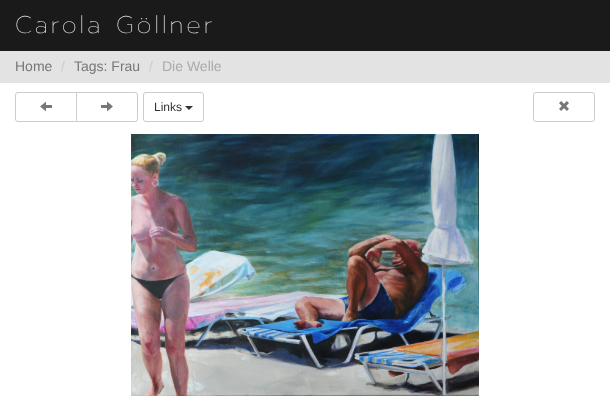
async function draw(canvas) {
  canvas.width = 610
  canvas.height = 397
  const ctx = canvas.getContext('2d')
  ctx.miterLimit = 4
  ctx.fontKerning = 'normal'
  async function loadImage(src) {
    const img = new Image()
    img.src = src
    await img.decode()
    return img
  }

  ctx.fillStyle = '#fff'
  ctx.fillRect(0, 0, 610, 397)
  ctx.fillStyle = '#1a1a1a'
  ctx.fillRect(0, 0, 610, 51)
  ctx.letterSpacing = '3px'
  ctx.font = '100 24px Prompt'
  ctx.fillStyle = '#e8e8e8'
  ctx.fillText('Carola Göllner', 15, 33)
  ctx.fillStyle = '#e3e3e3'
  ctx.fillRect(0, 51, 610, 32)
  ctx.letterSpacing = '0px'
  ctx.font = '14px Liberation Sans'
  ctx.fillStyle = '#777'
  ctx.fillText('Home', 15, 71)
  ctx.fillStyle = '#ccc'
  ctx.fillText('/', 61, 71)
  ctx.fillStyle = '#777'
  ctx.fillText('Tags: Frau', 74, 71)
  ctx.fillStyle = '#ccc'
  ctx.fillText('/', 149, 71)
  ctx.fillStyle = '#aaa'
  ctx.fillText('Die Welle', 162, 71)
  ctx.beginPath()
  ctx.roundRect(15.5, 92.5, 61, 29, [2.5, 0, 0, 2.5])
  ctx.strokeStyle = '#ccc'
  ctx.stroke()
  ctx.drawImage(await loadImage('image0.png'), 40, 101, 12, 11)
  ctx.fillStyle = '#fff'
  ctx.beginPath()
  ctx.roundRect(76.5, 92.5, 61, 29, [0, 2.5, 2.5, 0])
  ctx.fill()
  ctx.stroke()
  ctx.drawImage(await loadImage('image1.png'), 101, 101, 12, 11)
  ctx.beginPath()
  ctx.roundRect(143.5, 92.5, 60, 29, 2.5)
  ctx.stroke()
  ctx.font = '12px Liberation Sans'
  ctx.fillStyle = '#333'
  ctx.fillText('Links', 154, 111)
  ctx.beginPath()
  ctx.moveTo(185, 106)
  ctx.lineTo(193, 106)
  ctx.lineTo(189, 110)
  ctx.closePath()
  ctx.fill()
  ctx.beginPath()
  ctx.roundRect(533.5, 92.5, 61, 29, 2.5)
  ctx.stroke()
  ctx.drawImage(await loadImage('image2.png'), 559, 101, 10, 10)
  ctx.drawImage(await loadImage('image3.png'), 131, 134, 348, 262)
}

draw(document.querySelector('canvas'))
